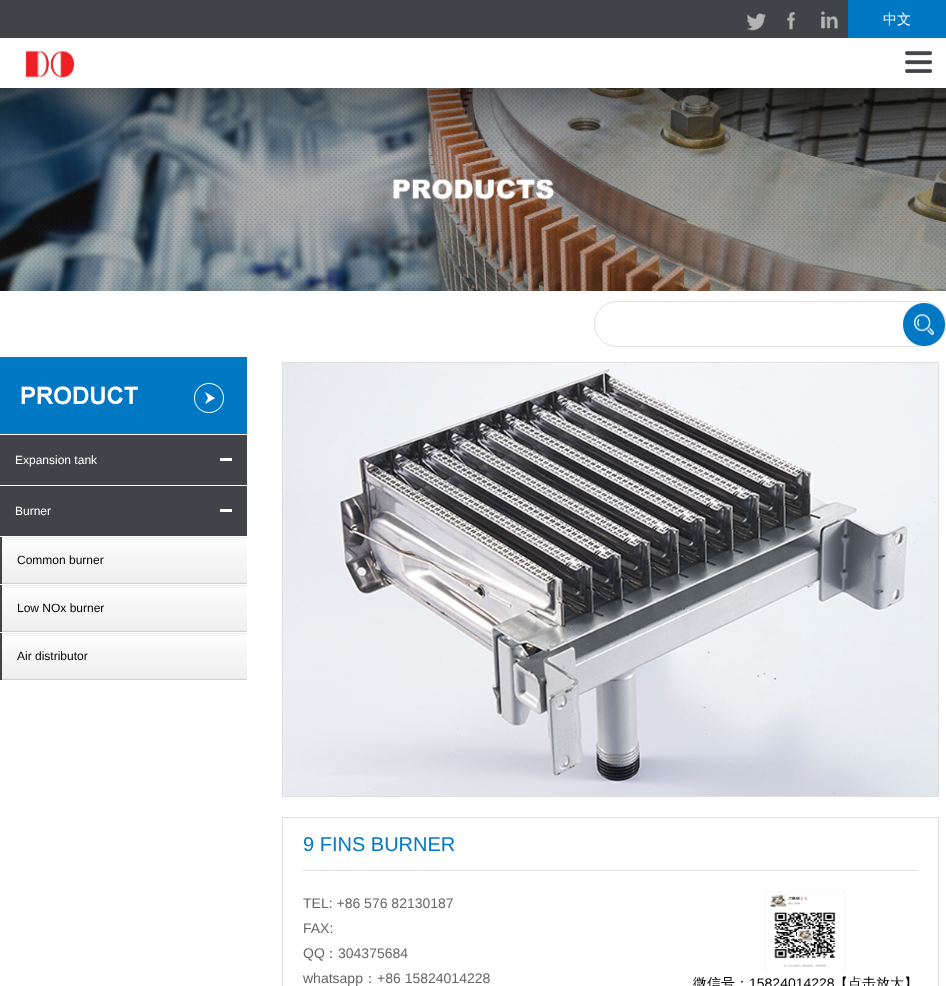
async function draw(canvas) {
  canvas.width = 946
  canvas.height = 986
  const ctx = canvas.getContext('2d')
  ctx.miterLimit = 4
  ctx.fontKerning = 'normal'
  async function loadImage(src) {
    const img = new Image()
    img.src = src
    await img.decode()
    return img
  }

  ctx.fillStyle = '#fff'
  ctx.fillRect(0, 0, 946, 986)
  ctx.fillStyle = '#424249'
  ctx.fillRect(0, 0, 848, 38)
  ctx.drawImage(await loadImage('image0.png'), 747, 13, 19, 18)
  ctx.drawImage(await loadImage('image1.png'), 787, 12, 8, 18)
  ctx.drawImage(await loadImage('image2.png'), 821, 11, 17, 18)
  ctx.fillStyle = '#0078c3'
  ctx.fillRect(848, 0, 98, 38)
  ctx.font = '500 14px WenQuanYi Zen Hei'
  ctx.fillStyle = '#fff'
  ctx.fillText('中文', 883, 24)
  ctx.drawImage(await loadImage('image3.png'), 26, 50, 49, 28)
  ctx.drawImage(await loadImage('image4.png'), 905, 51, 27, 22)
  ctx.drawImage(await loadImage('image5.png'), 0, 88, 946, 203)
  ctx.beginPath()
  ctx.roundRect(594.5, 301.5, 351, 45, 22.5)
  ctx.strokeStyle = '#dfdfdf'
  ctx.stroke()
  ctx.drawImage(await loadImage('image6.png'), 903, 303, 42, 43)
  ctx.drawImage(await loadImage('image7.png'), 0, 357, 247, 77)
  ctx.fillStyle = '#424249'
  ctx.fillRect(0, 435, 247, 50)
  ctx.fillStyle = '#fff'
  ctx.fillRect(220, 458, 12, 3)
  ctx.font = '12px Liberation Sans'
  ctx.fillText('Expansion tank', 15, 464)
  ctx.fillStyle = '#424249'
  ctx.fillRect(0, 486, 247, 50)
  ctx.fillStyle = '#fff'
  ctx.fillRect(220, 509, 12, 3)
  ctx.fillText('Burner', 15, 515)
  ctx.drawImage(await loadImage('image8.png'), 2, 537, 245, 47)
  ctx.fillStyle = '#424249'
  ctx.fillRect(0, 537, 2, 47)
  ctx.fillStyle = '#000'
  ctx.fillText('Common burner', 17, 564)
  ctx.drawImage(await loadImage('image8.png'), 2, 585, 245, 47)
  ctx.fillStyle = '#424249'
  ctx.fillRect(0, 585, 2, 47)
  ctx.fillStyle = '#000'
  ctx.fillText('Low NOx burner', 17, 612)
  ctx.drawImage(await loadImage('image8.png'), 2, 633, 245, 47)
  ctx.fillStyle = '#424249'
  ctx.fillRect(0, 633, 2, 47)
  ctx.fillStyle = '#000'
  ctx.fillText('Air distributor', 17, 660)
  ctx.strokeRect(282.5, 362.5, 656, 434)
  ctx.drawImage(await loadImage('image9.png'), 283, 363, 655, 433)
  ctx.strokeRect(282.5, 817.5, 656, 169)
  ctx.fillStyle = '#dfdfdf'
  ctx.fillRect(303, 870, 615, 1)
  ctx.font = '20px Liberation Sans'
  ctx.fillStyle = '#0078c3'
  ctx.fillText('9 FINS BURNER', 303, 851)
  ctx.font = '14px Liberation Sans'
  ctx.fillStyle = '#666'
  ctx.fillText('TEL: +86 576 82130187', 303, 908)
  ctx.fillText('FAX:', 303, 933)
  ctx.fillText('QQ', 303, 958)
  ctx.font = '500 14px WenQuanYi Zen Hei'
  ctx.fillText('：', 324, 958)
  ctx.font = '14px Liberation Sans'
  ctx.fillText('304375684', 338, 958)
  ctx.fillText('whatsapp', 303, 983)
  ctx.font = '500 14px WenQuanYi Zen Hei'
  ctx.fillText('：', 363, 983)
  ctx.font = '14px Liberation Sans'
  ctx.fillText('+86 15824014228', 377, 983)
  ctx.drawImage(await loadImage('image10.png'), 765, 891, 80, 80)
  ctx.font = '500 14px WenQuanYi Zen Hei'
  ctx.fillStyle = '#000'
  ctx.fillText('微信号：', 693, 988)
  ctx.font = '14px Liberation Sans'
  ctx.fillText('15824014228', 749, 988)
  ctx.font = '500 14px WenQuanYi Zen Hei'
  ctx.fillText('【点击放大】', 834, 988)
}

draw(document.querySelector('canvas'))
